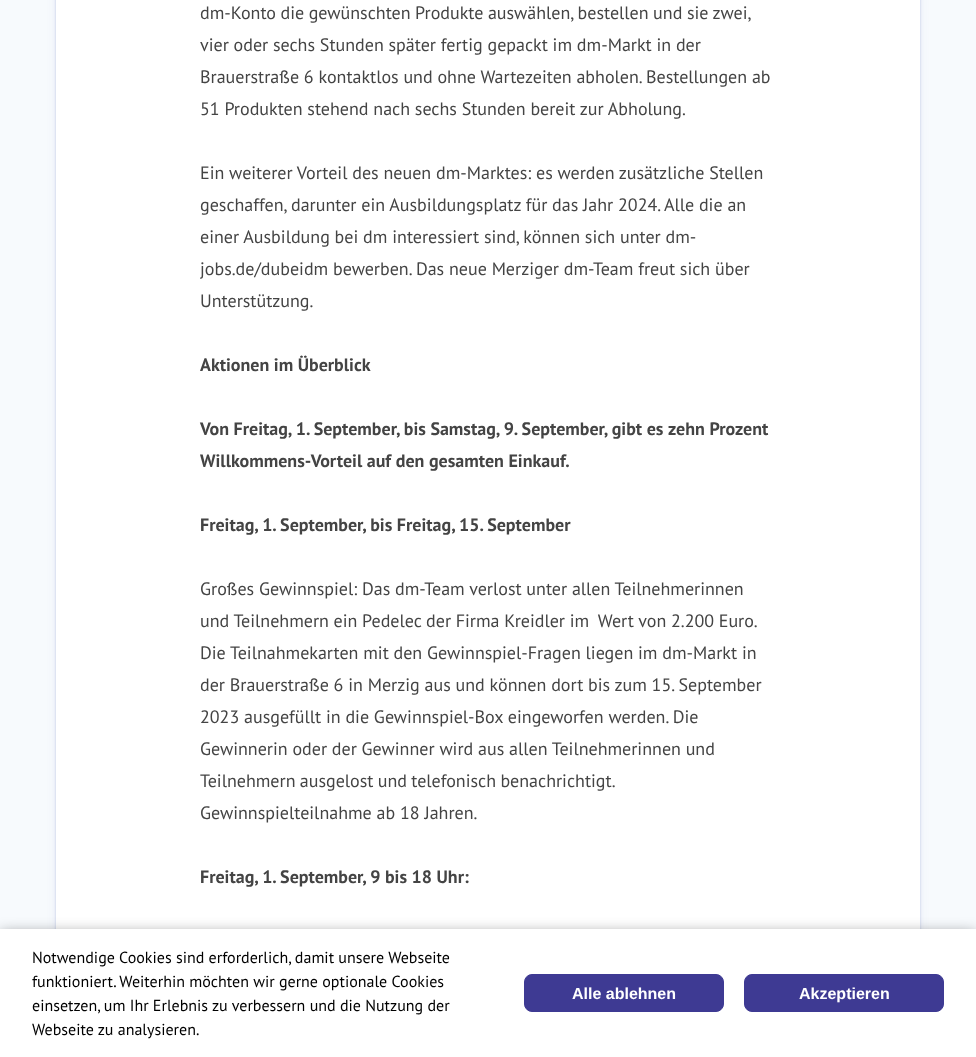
async function draw(canvas) {
  canvas.width = 976
  canvas.height = 1057
  const ctx = canvas.getContext('2d')
  ctx.miterLimit = 4
  ctx.fontKerning = 'normal'

  ctx.fillStyle = '#f7fafd'
  ctx.fillRect(0, 0, 976, 1057)
  ctx.fillStyle = '#3149a424'
  ctx.filter = 'blur(1px)'
  ctx.beginPath()
  ctx.roundRect(56, -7, 864, 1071, 4)
  ctx.fill()
  ctx.filter = 'none'
  ctx.fillStyle = '#3149a41a'
  ctx.filter = 'blur(1.5px)'
  ctx.beginPath()
  ctx.roundRect(56, -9, 864, 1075, 4)
  ctx.fill()
  ctx.filter = 'none'
  ctx.fillStyle = '#3149a414'
  ctx.filter = 'blur(5px)'
  ctx.beginPath()
  ctx.roundRect(56, -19, 864, 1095, 4)
  ctx.fill()
  ctx.filter = 'none'
  ctx.fillStyle = '#fff'
  ctx.fillRect(56, 0, 864, 929)
  ctx.wordSpacing = '-0.25px'
  ctx.font = '18px PT Sans'
  ctx.fillStyle = '#444'
  ctx.fillText('dm-Konto die gewünschten Produkte auswählen, bestellen und sie zwei,', 200, 19)
  ctx.wordSpacing = '0px'
  ctx.fillText('vier oder sechs Stunden später fertig gepackt im dm-Markt in der', 200, 51)
  ctx.fillText('Brauerstraße 6 kontaktlos und ohne Wartezeiten abholen. Bestellungen ab', 200, 83)
  ctx.fillText('51 Produkten stehend nach sechs Stunden bereit zur Abholung.', 200, 115)
  ctx.fillText('Ein weiterer Vorteil des neuen dm-Marktes: es werden zusätzliche Stellen', 200, 179)
  ctx.fillText('geschaffen, darunter ein Ausbildungsplatz für das Jahr 2024. Alle die an', 200, 211)
  ctx.fillText('einer Ausbildung bei dm interessiert sind, können sich unter dm-', 200, 243)
  ctx.fillText('jobs.de/dubeidm bewerben. Das neue Merziger dm-Team freut sich über', 200, 275)
  ctx.fillText('Unterstützung.', 200, 307)
  ctx.font = 'bold 18px PT Sans'
  ctx.fillText('Aktionen im Überblick', 200, 371)
  ctx.fillText('Von Freitag, 1. September, bis Samstag, 9. September, gibt es zehn Prozent', 200, 435)
  ctx.fillText('Willkommens-Vorteil auf den gesamten Einkauf.', 200, 467)
  ctx.fillText('Freitag, 1. September, bis Freitag, 15. September', 200, 531)
  ctx.font = '18px PT Sans'
  ctx.fillText('Großes Gewinnspiel: Das dm-Team verlost unter allen Teilnehmerinnen', 200, 595)
  ctx.wordSpacing = '-0.1px'
  ctx.fillText('und Teilnehmern ein Pedelec der Firma Kreidler im Wert von 2.200 Euro.', 200, 627)
  ctx.wordSpacing = '0px'
  ctx.fillText('Die Teilnahmekarten mit den Gewinnspiel-Fragen liegen im dm-Markt in', 200, 659)
  ctx.fillText('der Brauerstraße 6 in Merzig aus und können dort bis zum 15. September', 200, 691)
  ctx.fillText('2023 ausgefüllt in die Gewinnspiel-Box eingeworfen werden. Die', 200, 723)
  ctx.fillText('Gewinnerin oder der Gewinner wird aus allen Teilnehmerinnen und', 200, 755)
  ctx.wordSpacing = '-0.5px'
  ctx.fillText('Teilnehmern ausgelost und telefonisch benachrichtigt.', 200, 787)
  ctx.wordSpacing = '0px'
  ctx.fillText('Gewinnspielteilnahme ab 18 Jahren.', 200, 819)
  ctx.font = 'bold 18px PT Sans'
  ctx.fillText('Freitag, 1. September, 9 bis 18 Uhr:', 200, 883)
  ctx.fillStyle = '#00000080'
  ctx.filter = 'blur(7.5px)'
  ctx.beginPath()
  ctx.rect(0, 934, 976, 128)
  ctx.fill()
  ctx.filter = 'none'
  ctx.fillStyle = '#fff'
  ctx.fillRect(0, 929, 976, 128)
  ctx.font = '16px PT Sans'
  ctx.fillStyle = '#000'
  ctx.fillText('Notwendige Cookies sind erforderlich, damit unsere Webseite', 32, 963)
  ctx.fillText('funktioniert. Weiterhin möchten wir gerne optionale Cookies', 32, 987)
  ctx.fillText('einsetzen, um Ihr Erlebnis zu verbessern und die Nutzung der', 32, 1011)
  ctx.fillText('Webseite zu analysieren.', 32, 1035)
  ctx.fillStyle = '#3e3a93'
  ctx.beginPath()
  ctx.roundRect(524.5, 974.5, 199, 37, 7.5)
  ctx.fill()
  ctx.strokeStyle = '#3e3a93'
  ctx.stroke()
  ctx.font = 'bold 16px Liberation Sans'
  ctx.fillStyle = '#fff'
  ctx.fillText('Alle ablehnen', 572, 999)
  ctx.fillStyle = '#3e3a93'
  ctx.beginPath()
  ctx.roundRect(744.5, 974.5, 199, 37, 7.5)
  ctx.fill()
  ctx.stroke()
  ctx.fillStyle = '#fff'
  ctx.fillText('Akzeptieren', 799, 999)
}

draw(document.querySelector('canvas'))
